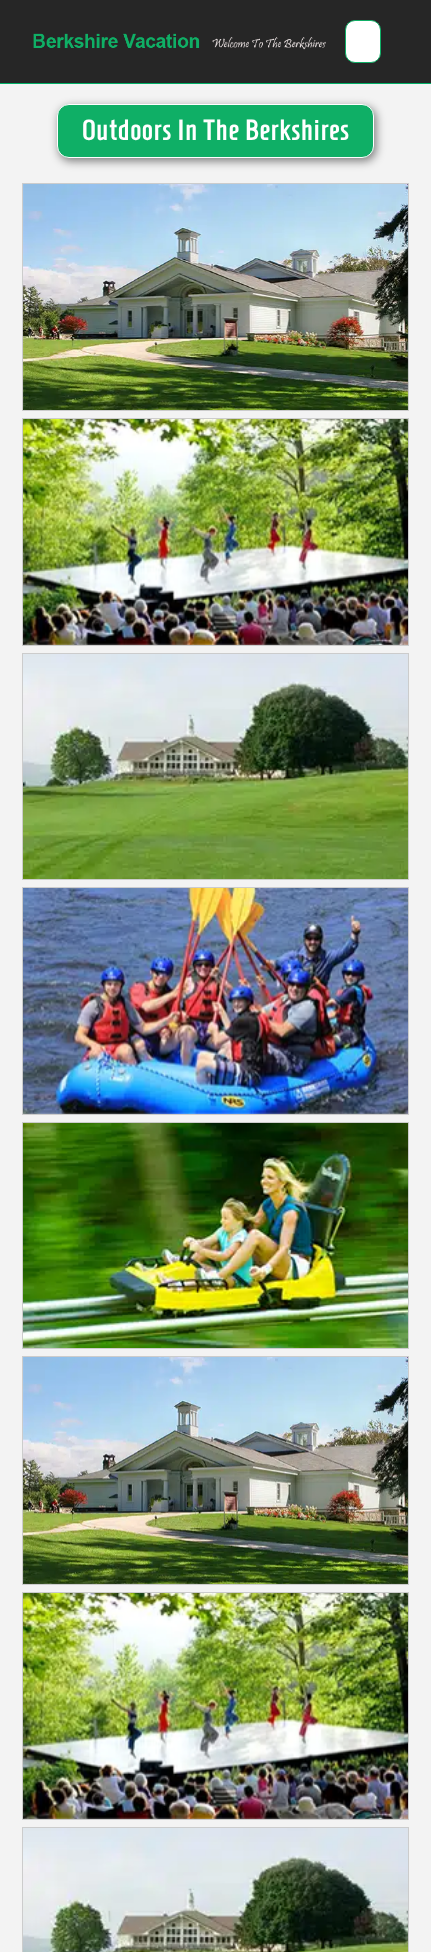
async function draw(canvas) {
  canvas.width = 431
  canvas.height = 1952
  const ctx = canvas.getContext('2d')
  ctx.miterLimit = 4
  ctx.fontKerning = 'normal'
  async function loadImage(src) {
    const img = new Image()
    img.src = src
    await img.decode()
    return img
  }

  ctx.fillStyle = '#f3f3f3'
  ctx.fillRect(0, 0, 431, 1952)
  ctx.fillStyle = '#262626'
  ctx.fillRect(0, 0, 431, 83)
  ctx.fillStyle = '#00af66'
  ctx.fillRect(0, 83, 431, 1)
  ctx.drawImage(await loadImage('image0.png'), 33, 33, 167, 15)
  ctx.drawImage(await loadImage('image1.png'), 212, 37, 114, 13)
  ctx.fillStyle = '#fff'
  ctx.beginPath()
  ctx.roundRect(345.5, 20.5, 35, 42, 9.5)
  ctx.fill()
  ctx.strokeStyle = '#0faf66'
  ctx.stroke()
  ctx.fillStyle = '#00000080'
  ctx.filter = 'blur(5px)'
  ctx.beginPath()
  ctx.roundRect(59, 107, 317, 54, 12)
  ctx.fill()
  ctx.filter = 'none'
  ctx.fillStyle = '#0faf66'
  ctx.beginPath()
  ctx.roundRect(57.5, 104.5, 316, 53, 11.5)
  ctx.fill()
  ctx.strokeStyle = '#fff'
  ctx.stroke()
  ctx.letterSpacing = '1.2px'
  ctx.font = 'bold 28px Homenaje'
  ctx.fillStyle = '#fff'
  ctx.fillText('Outdoors In The Berkshires', 82, 140)
  ctx.strokeStyle = '#ccc'
  ctx.strokeRect(22.5, 183.5, 386, 227)
  ctx.drawImage(await loadImage('image2.png'), 23, 184, 385, 226)
  ctx.strokeRect(22.5, 418.5, 386, 227)
  ctx.drawImage(await loadImage('image3.png'), 23, 419, 385, 226)
  ctx.strokeRect(22.5, 653.5, 386, 226)
  ctx.drawImage(await loadImage('image4.png'), 23, 654, 385, 225)
  ctx.strokeRect(22.5, 887.5, 386, 227)
  ctx.drawImage(await loadImage('image5.png'), 23, 888, 385, 226)
  ctx.strokeRect(22.5, 1122.5, 386, 226)
  ctx.drawImage(await loadImage('image6.png'), 23, 1123, 385, 225)
  ctx.strokeRect(22.5, 1356.5, 386, 228)
  ctx.drawImage(await loadImage('image7.png'), 23, 1357, 385, 227)
  ctx.strokeRect(22.5, 1592.5, 386, 227)
  ctx.drawImage(await loadImage('image3.png'), 23, 1593, 385, 226)
  ctx.strokeRect(22.5, 1827.5, 386, 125)
  ctx.drawImage(await loadImage('image8.png'), 23, 1828, 385, 124)
}

draw(document.querySelector('canvas'))
